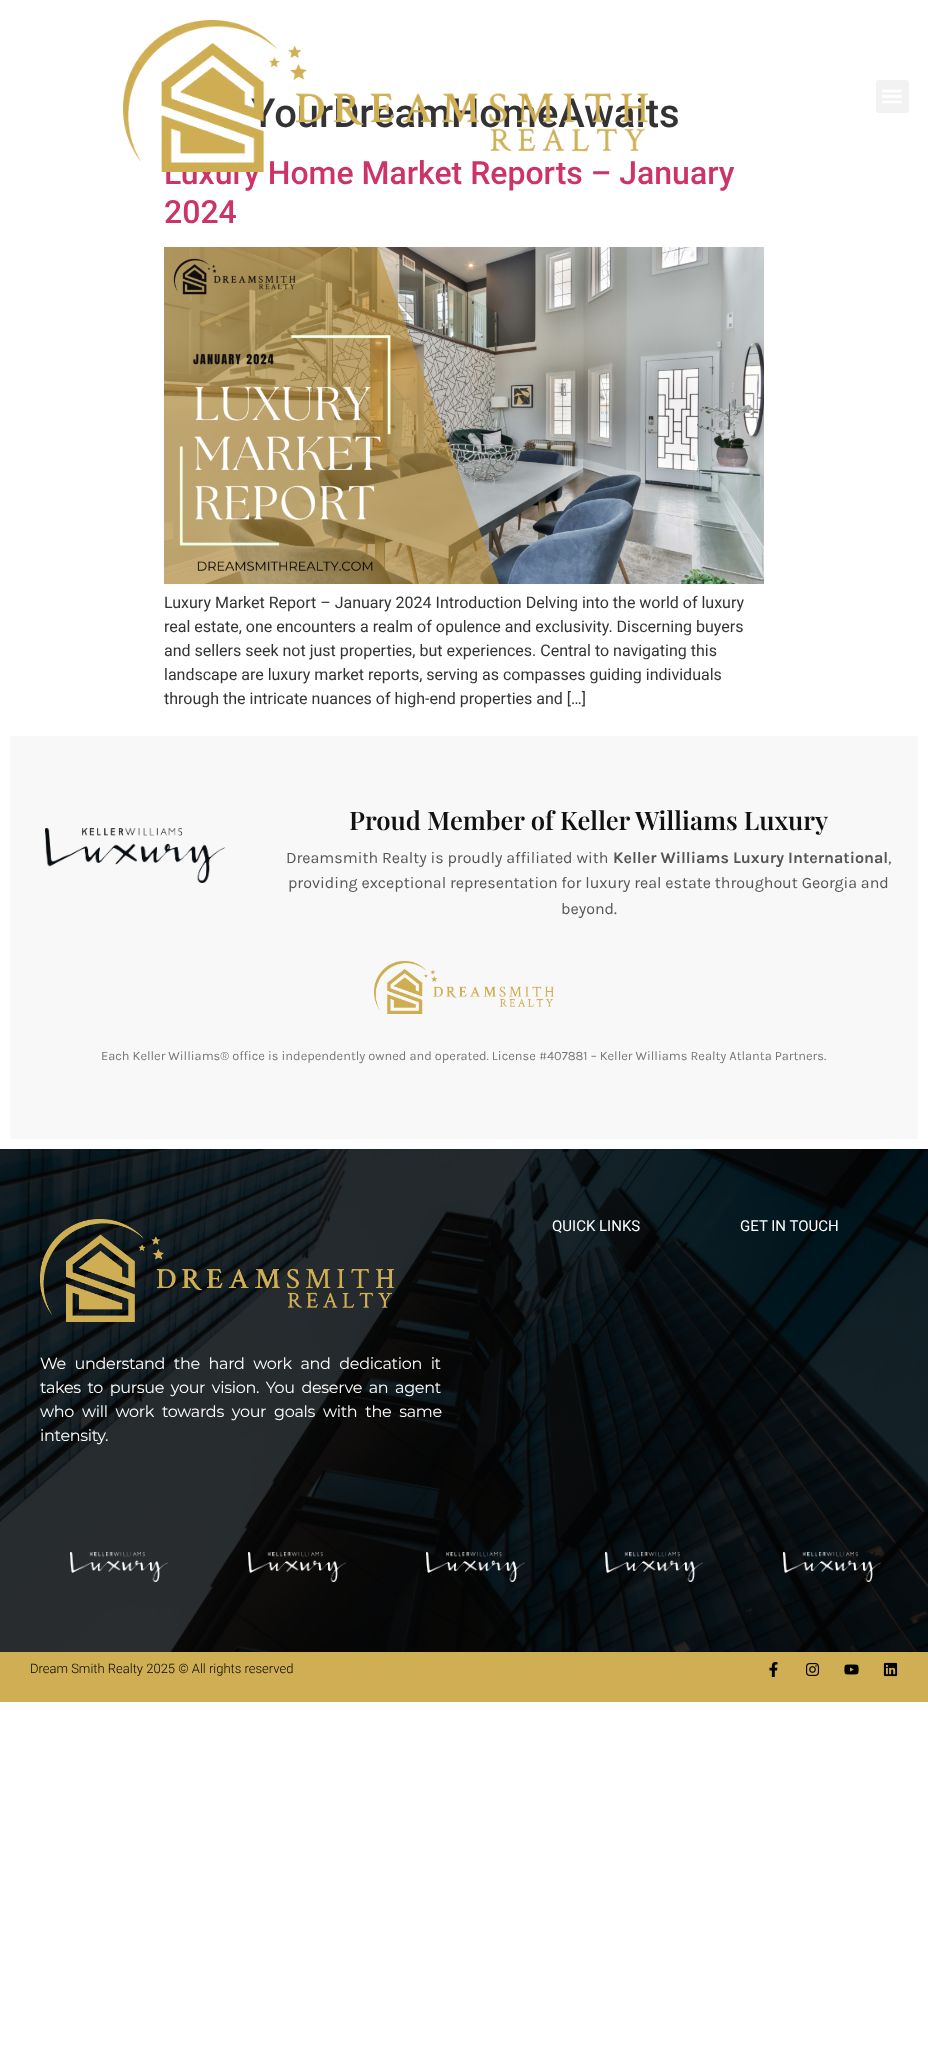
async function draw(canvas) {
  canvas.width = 928
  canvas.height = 2063
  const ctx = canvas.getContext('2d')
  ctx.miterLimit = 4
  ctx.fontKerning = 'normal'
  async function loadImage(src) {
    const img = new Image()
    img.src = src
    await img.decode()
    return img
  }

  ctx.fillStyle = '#fff'
  ctx.fillRect(0, 0, 928, 2063)
  ctx.font = '500 40px Roboto'
  ctx.fillStyle = '#333'
  ctx.fillText('YourDreamHomeAwaits', 251, 127)
  ctx.font = '500 32px Roboto'
  ctx.fillStyle = '#c36'
  ctx.fillText('Luxury Home Market Reports – January', 164, 184)
  ctx.drawImage(await loadImage('image0.png'), 123, 20, 525, 152)
  ctx.fillStyle = '#f2f2f2'
  ctx.beginPath()
  ctx.roundRect(876, 80, 33, 33, 3)
  ctx.fill()
  ctx.drawImage(await loadImage('image1.png'), 882, 89, 20, 15)
  ctx.fillStyle = '#c36'
  ctx.fillText('2024', 164, 223)
  ctx.drawImage(await loadImage('image2.png'), 164, 247, 600, 337)
  ctx.font = '16px Roboto'
  ctx.fillStyle = '#333'
  ctx.fillText('Luxury Market Report – January 2024 Introduction Delving into the world of luxury', 164, 608)
  ctx.fillText('real estate, one encounters a realm of opulence and exclusivity. Discerning buyers', 164, 632)
  ctx.fillText('and sellers seek not just properties, but experiences. Central to navigating this', 164, 656)
  ctx.fillText('landscape are luxury market reports, serving as compasses guiding individuals', 164, 680)
  ctx.fillText('through the intricate nuances of high-end properties and […]', 164, 704)
  ctx.fillStyle = '#f8f8f8'
  ctx.fillRect(10, 736, 908, 403)
  ctx.drawImage(await loadImage('image3.png'), 45, 828, 180, 55)
  ctx.font = '600 25.6px Playfair Display'
  ctx.fillStyle = '#111'
  ctx.fillText('Proud Member of Keller Williams Luxury', 349, 830)
  ctx.font = '16px Karla'
  ctx.fillStyle = '#555'
  ctx.fillText('Dreamsmith Realty is proudly affiliated with', 286, 863)
  ctx.font = 'bold 16px Karla'
  ctx.fillText('Keller Williams Luxury International', 613, 863)
  ctx.font = '16px Karla'
  ctx.fillText(',', 888, 863)
  ctx.fillText('providing exceptional representation for luxury real estate throughout Georgia and', 288, 888)
  ctx.fillText('beyond.', 561, 914)
  ctx.drawImage(await loadImage('image4.png'), 374, 961, 180, 53)
  ctx.font = '12.8px Karla'
  ctx.fillStyle = '#777'
  ctx.fillText('Each Keller Williams® office is independently owned and operated. License #407881 – Keller Williams Realty Atlanta Partners.', 101, 1060)
  ctx.drawImage(await loadImage('image5.png'), 0, 1149, 928, 503)
  ctx.font = '15px Roboto'
  ctx.fillStyle = '#fff'
  ctx.fillText('QUICK LINKS', 552, 1231)
  ctx.fillText('GET IN TOUCH', 740, 1231)
  ctx.drawImage(await loadImage('image6.png'), 40, 1219, 354, 103)
  ctx.letterSpacing = '-0.3px'
  ctx.wordSpacing = '4.75px'
  ctx.font = '16px Montserrat'
  ctx.fillText('We understand the hard work and dedication it', 40, 1369)
  ctx.wordSpacing = '2.75px'
  ctx.fillText('takes to pursue your vision. You deserve an agent', 40, 1393)
  ctx.wordSpacing = '4px'
  ctx.fillText('who will work towards your goals with the same', 40, 1417)
  ctx.wordSpacing = '0px'
  ctx.fillText('intensity.', 40, 1441)
  ctx.drawImage(await loadImage('image7.png'), 70, 1552, 98, 30)
  ctx.drawImage(await loadImage('image8.png'), 248, 1552, 98, 30)
  ctx.drawImage(await loadImage('image9.png'), 426, 1552, 99, 30)
  ctx.drawImage(await loadImage('image10.png'), 605, 1552, 98, 30)
  ctx.drawImage(await loadImage('image11.png'), 783, 1552, 98, 30)
  ctx.fillStyle = '#d0ae53'
  ctx.fillRect(0, 1652, 928, 50)
  ctx.letterSpacing = '0px'
  ctx.font = '300 13px Roboto'
  ctx.fillStyle = '#000'
  ctx.fillText('Dream Smith Realty 2025 © All rights reserved', 30, 1673)
  ctx.drawImage(await loadImage('image12.png'), 769, 1662, 9, 15)
  ctx.drawImage(await loadImage('image13.png'), 806, 1663, 14, 13)
  ctx.drawImage(await loadImage('image14.png'), 844, 1664, 15, 11)
  ctx.drawImage(await loadImage('image15.png'), 883, 1662, 15, 15)
}

draw(document.querySelector('canvas'))
